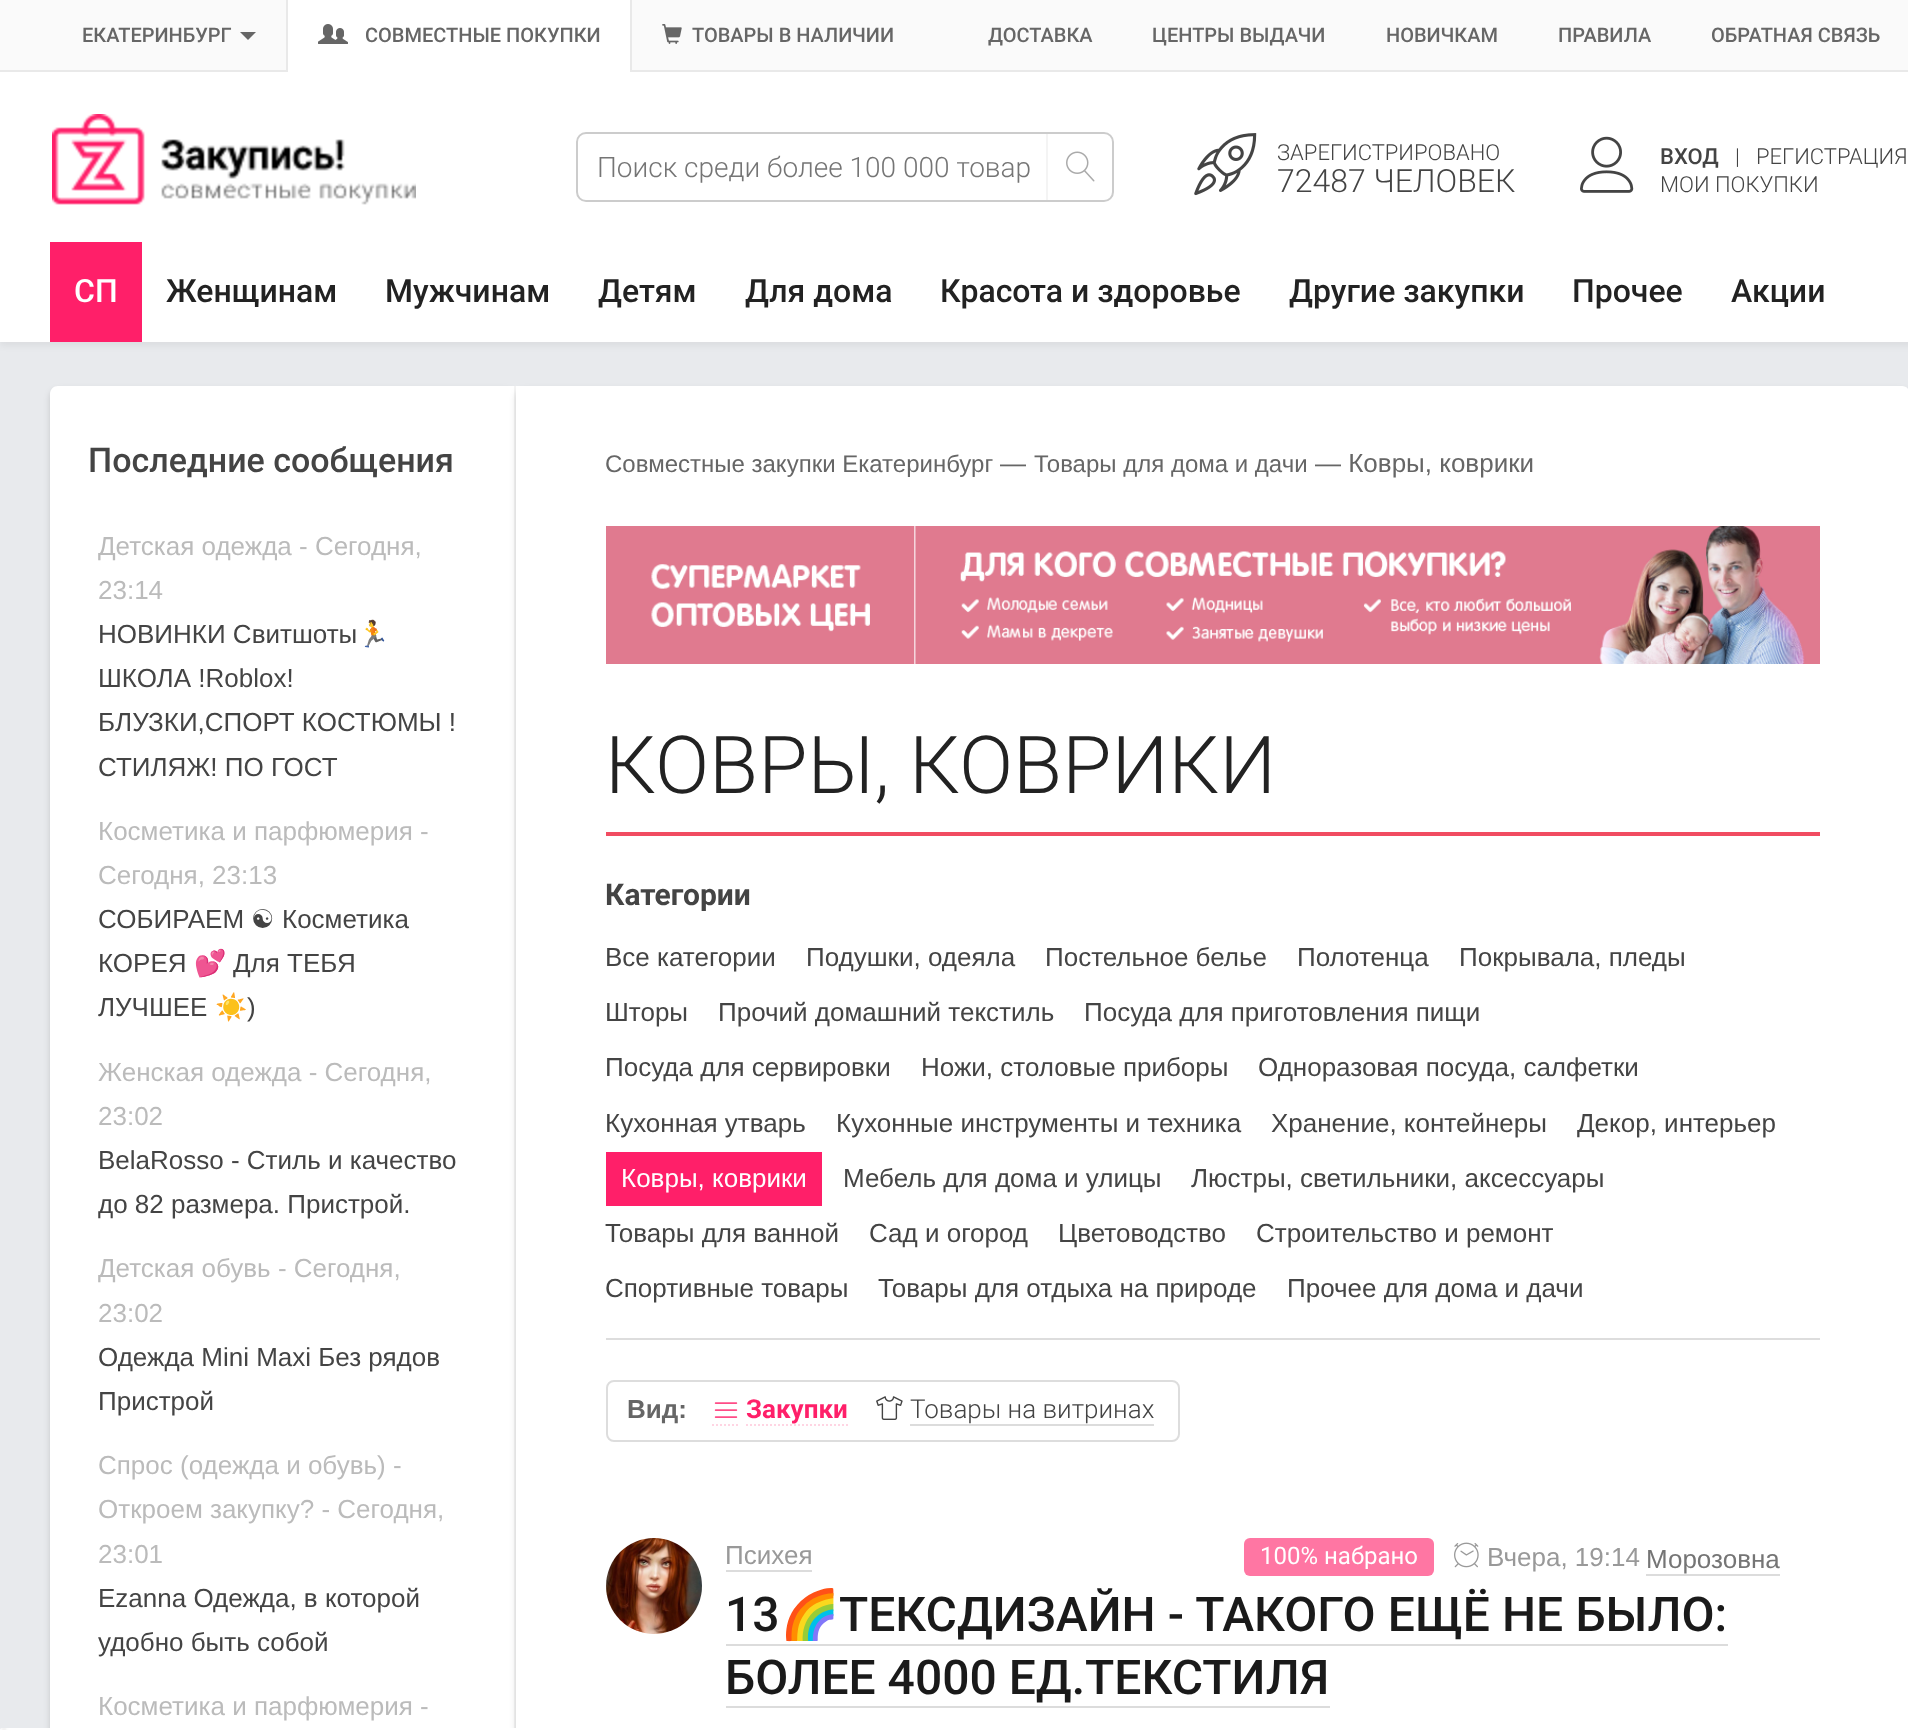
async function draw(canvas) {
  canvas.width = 1908
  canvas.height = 1730
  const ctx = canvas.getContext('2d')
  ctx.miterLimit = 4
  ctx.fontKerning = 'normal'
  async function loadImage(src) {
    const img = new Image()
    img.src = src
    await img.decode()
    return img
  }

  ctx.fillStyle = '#e8eaed'
  ctx.fillRect(0, 0, 1908, 1730)
  ctx.fillStyle = '#0000000d'
  ctx.filter = 'blur(3px)'
  ctx.beginPath()
  ctx.rect(0, 4, 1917, 342)
  ctx.fill()
  ctx.filter = 'none'
  ctx.fillStyle = '#fff'
  ctx.fillRect(0, 72, 1908, 270)
  ctx.fillStyle = '#fafafa'
  ctx.fillRect(0, 0, 1908, 70)
  ctx.fillStyle = '#e9e9e9'
  ctx.fillRect(0, 70, 1908, 2)
  ctx.font = '500 20px Roboto'
  ctx.fillStyle = '#666'
  ctx.fillText('ЕКАТЕРИНБУРГ', 82, 42)
  ctx.beginPath()
  ctx.moveTo(240, 32)
  ctx.lineTo(256, 32)
  ctx.lineTo(248, 40)
  ctx.closePath()
  ctx.fill()
  ctx.fillStyle = '#fff'
  ctx.fillRect(288, 0, 342, 72)
  ctx.fillStyle = '#e9e9e9'
  ctx.fillRect(630, 0, 2, 72)
  ctx.fillRect(286, 0, 2, 72)
  ctx.drawImage(await loadImage('image0.png'), 318, 24, 18, 20)
  ctx.drawImage(await loadImage('image1.png'), 335, 28, 13, 16)
  ctx.fillStyle = '#666'
  ctx.fillText('СОВМЕСТНЫЕ ПОКУПКИ', 365, 42)
  ctx.drawImage(await loadImage('image2.png'), 662, 24, 20, 20)
  ctx.fillText('ТОВАРЫ В НАЛИЧИИ', 692, 42)
  ctx.fillText('ДОСТАВКА', 988, 42)
  ctx.fillText('ЦЕНТРЫ ВЫДАЧИ', 1152, 42)
  ctx.fillText('НОВИЧКАМ', 1386, 42)
  ctx.fillText('ПРАВИЛА', 1558, 42)
  ctx.fillText('ОБРАТНАЯ СВЯЗЬ', 1711, 42)
  ctx.drawImage(await loadImage('image3.png'), 52, 114, 364, 91)
  ctx.beginPath()
  ctx.roundRect(577, 133, 536, 68, 9)
  ctx.strokeStyle = '#ccc'
  ctx.lineWidth = 2
  ctx.stroke()
  ctx.font = '300 28px Roboto'
  ctx.fillStyle = '#757575'
  ctx.fillText('Поиск среди более 100 000 товар', 597, 177)
  ctx.fillStyle = '#f4f4f4'
  ctx.fillRect(1046, 134, 2, 66)
  ctx.drawImage(await loadImage('image4.png'), 1066, 151, 29, 31)
  ctx.drawImage(await loadImage('image5.png'), 1194, 133, 63, 63)
  ctx.font = '300 22px Roboto'
  ctx.fillStyle = '#444'
  ctx.fillText('ЗАРЕГИСТРИРОВАНО', 1277, 160)
  ctx.font = '300 32px Roboto'
  ctx.fillText('72487 ЧЕЛОВЕК', 1277, 192)
  ctx.drawImage(await loadImage('image6.png'), 1580, 136, 54, 57)
  ctx.font = '500 22px Roboto'
  ctx.fillText('ВХОД', 1660, 164)
  ctx.font = '300 22px Roboto'
  ctx.fillText('|   РЕГИСТРАЦИЯ', 1735, 164)
  ctx.fillText('МОИ ПОКУПКИ', 1660, 192)
  ctx.fillStyle = '#ff1f69'
  ctx.fillRect(50, 242, 92, 100)
  ctx.font = '500 32px Roboto'
  ctx.fillStyle = '#fff'
  ctx.fillText('СП', 74, 302)
  ctx.fillStyle = '#222'
  ctx.fillText('Женщинам', 166, 302)
  ctx.fillText('Мужчинам', 385, 302)
  ctx.fillText('Детям', 598, 302)
  ctx.fillText('Для дома', 745, 302)
  ctx.fillText('Красота и здоровье', 940, 302)
  ctx.fillText('Другие закупки', 1289, 302)
  ctx.fillText('Прочее', 1572, 302)
  ctx.fillText('Акции', 1731, 302)
  ctx.fillStyle = '#00000026'
  ctx.filter = 'blur(3px)'
  ctx.beginPath()
  ctx.roundRect(50, 390, 466, 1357, 8)
  ctx.fill()
  ctx.filter = 'none'
  ctx.fillStyle = '#fff'
  ctx.beginPath()
  ctx.moveTo(58, 386)
  ctx.lineTo(516, 386)
  ctx.lineTo(516, 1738)
  ctx.lineTo(58, 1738)
  ctx.bezierCurveTo(53.5, 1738, 50, 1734.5, 50, 1730)
  ctx.lineTo(50, 394)
  ctx.bezierCurveTo(50, 389.5, 53.5, 386, 58, 386)
  ctx.closePath()
  ctx.fill()
  ctx.fillStyle = '#f4f4f4'
  ctx.fillRect(514, 386, 2, 1344)
  ctx.font = '500 34px Roboto'
  ctx.fillStyle = '#444'
  ctx.fillText('Последние сообщения', 88, 472)
  ctx.font = '26px Liberation Sans'
  ctx.fillStyle = '#bbb'
  ctx.fillText('Детская одежда - Сегодня,', 98, 555)
  ctx.fillText('23:14', 98, 599)
  ctx.fillStyle = '#444'
  ctx.fillText('НОВИНКИ Свитшоты', 98, 643)
  ctx.font = '26px Noto Color Emoji'
  ctx.fillText('🏃', 357, 643)
  ctx.font = '26px Liberation Sans'
  ctx.fillText('ШКОЛА !Roblox!', 98, 687)
  ctx.fillText('БЛУЗКИ,СПОРТ КОСТЮМЫ !', 98, 731)
  ctx.fillText('СТИЛЯЖ! ПО ГОСТ', 98, 776)
  ctx.fillStyle = '#bbb'
  ctx.fillText('Косметика и парфюмерия -', 98, 840)
  ctx.fillText('Сегодня, 23:13', 98, 884)
  ctx.fillStyle = '#444'
  ctx.fillText('СОБИРАЕМ', 98, 928)
  ctx.font = '26px DejaVu Sans'
  ctx.fillText('☯', 251, 928)
  ctx.font = '26px Liberation Sans'
  ctx.fillText('Косметика', 282, 928)
  ctx.fillText('КОРЕЯ', 98, 972)
  ctx.font = '26px Noto Color Emoji'
  ctx.fillText('💕', 194, 972)
  ctx.font = '26px Liberation Sans'
  ctx.fillText('Для ТЕБЯ', 233, 972)
  ctx.fillText('ЛУЧШЕЕ', 98, 1016)
  ctx.font = '26px Noto Color Emoji'
  ctx.fillText('☀️', 215, 1016)
  ctx.font = '26px Liberation Sans'
  ctx.fillText(')', 247, 1016)
  ctx.fillStyle = '#bbb'
  ctx.fillText('Женская одежда - Сегодня,', 98, 1081)
  ctx.fillText('23:02', 98, 1125)
  ctx.fillStyle = '#444'
  ctx.fillText('BelaRosso - Стиль и качество', 98, 1169)
  ctx.fillText('до 82 размера. Пристрой.', 98, 1213)
  ctx.fillStyle = '#bbb'
  ctx.fillText('Детская обувь - Сегодня,', 98, 1277)
  ctx.fillText('23:02', 98, 1322)
  ctx.fillStyle = '#444'
  ctx.fillText('Одежда Mini Maxi Без рядов', 98, 1366)
  ctx.fillText('Пристрой', 98, 1410)
  ctx.fillStyle = '#bbb'
  ctx.fillText('Спрос (одежда и обувь) -', 98, 1474)
  ctx.fillText('Откроем закупку? - Сегодня,', 98, 1518)
  ctx.fillText('23:01', 98, 1563)
  ctx.fillStyle = '#444'
  ctx.fillText('Ezanna Одежда, в которой', 98, 1607)
  ctx.fillText('удобно быть собой', 98, 1651)
  ctx.fillStyle = '#bbb'
  ctx.fillText('Косметика и парфюмерия -', 98, 1715)
  ctx.fillStyle = '#00000026'
  ctx.filter = 'blur(3px)'
  ctx.beginPath()
  ctx.roundRect(516, 390, 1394, 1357, 8)
  ctx.fill()
  ctx.filter = 'none'
  ctx.fillStyle = '#fff'
  ctx.beginPath()
  ctx.moveTo(516, 386)
  ctx.lineTo(1902, 386)
  ctx.bezierCurveTo(1906.5, 386, 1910, 389.5, 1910, 394)
  ctx.lineTo(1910, 1730)
  ctx.bezierCurveTo(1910, 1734.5, 1906.5, 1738, 1902, 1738)
  ctx.lineTo(524, 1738)
  ctx.bezierCurveTo(519.5, 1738, 516, 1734.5, 516, 1730)
  ctx.closePath()
  ctx.fill()
  ctx.font = '24px Liberation Sans'
  ctx.fillStyle = '#666'
  ctx.fillText('Совместные закупки Екатеринбург', 605, 472)
  ctx.font = '26px Liberation Sans'
  ctx.fillText('—', 1000, 472)
  ctx.font = '24px Liberation Sans'
  ctx.fillText('Товары для дома и дачи', 1034, 472)
  ctx.font = '26px Liberation Sans'
  ctx.fillText('— Ковры, коврики', 1315, 472)
  ctx.drawImage(await loadImage('image7.png'), 606, 526, 1214, 138)
  ctx.fillStyle = '#f14c61'
  ctx.fillRect(606, 832, 1214, 4)
  ctx.font = '300 80px Roboto'
  ctx.fillStyle = '#222'
  ctx.fillText('КОВРЫ, КОВРИКИ', 605, 793)
  ctx.fillStyle = '#ddd'
  ctx.fillRect(606, 1338, 1214, 2)
  ctx.font = 'bold 30px Roboto'
  ctx.fillStyle = '#444'
  ctx.fillText('Категории', 605, 905)
  ctx.font = '26px Liberation Sans'
  ctx.fillText('Все категории', 605, 966)
  ctx.fillText('Подушки, одеяла', 806, 966)
  ctx.fillText('Постельное белье', 1045, 966)
  ctx.fillText('Полотенца', 1297, 966)
  ctx.fillText('Покрывала, пледы', 1459, 966)
  ctx.fillText('Шторы', 605, 1021)
  ctx.fillText('Прочий домашний текстиль', 718, 1021)
  ctx.fillText('Посуда для приготовления пищи', 1084, 1021)
  ctx.fillText('Посуда для сервировки', 605, 1076)
  ctx.fillText('Ножи, столовые приборы', 921, 1076)
  ctx.fillText('Одноразовая посуда, салфетки', 1258, 1076)
  ctx.fillText('Кухонная утварь', 605, 1132)
  ctx.fillText('Кухонные инструменты и техника', 836, 1132)
  ctx.fillText('Хранение, контейнеры', 1271, 1132)
  ctx.fillText('Декор, интерьер', 1577, 1132)
  ctx.fillStyle = '#ff1f69'
  ctx.fillRect(606, 1152, 216, 54)
  ctx.fillStyle = '#fff'
  ctx.fillText('Ковры, коврики', 621, 1187)
  ctx.fillStyle = '#444'
  ctx.fillText('Мебель для дома и улицы', 843, 1187)
  ctx.fillText('Люстры, светильники, аксессуары', 1191, 1187)
  ctx.fillText('Товары для ванной', 605, 1242)
  ctx.fillText('Сад и огород', 869, 1242)
  ctx.fillText('Цветоводство', 1058, 1242)
  ctx.fillText('Строительство и ремонт', 1256, 1242)
  ctx.fillText('Спортивные товары', 605, 1297)
  ctx.fillText('Товары для отдыха на природе', 878, 1297)
  ctx.fillText('Прочее для дома и дачи', 1287, 1297)
  ctx.beginPath()
  ctx.roundRect(607, 1381, 572, 60, 7)
  ctx.strokeStyle = '#ddd'
  ctx.stroke()
  ctx.font = 'bold 26px Liberation Sans'
  ctx.fillStyle = '#666'
  ctx.fillText('Вид:', 627, 1418)
  ctx.drawImage(await loadImage('image8.png'), 714, 1402, 24, 16)
  ctx.font = 'bold 26px Roboto'
  ctx.fillStyle = '#ff1f69'
  ctx.fillText('Закупки', 746, 1418)
  ctx.beginPath()
  ctx.moveTo(746, 1425)
  ctx.lineTo(848, 1425)
  ctx.strokeStyle = '#ffd5e3'
  ctx.setLineDash([2, 2])
  ctx.stroke()
  ctx.beginPath()
  ctx.moveTo(712, 1425)
  ctx.lineTo(740, 1425)
  ctx.stroke()
  ctx.drawImage(await loadImage('image9.png'), 876, 1396, 27, 24)
  ctx.font = '300 26px Roboto'
  ctx.fillStyle = '#444'
  ctx.fillText('Товары на витринах', 910, 1418)
  ctx.fillStyle = '#dcdcdc'
  ctx.fillRect(910, 1424, 244, 2)
  ctx.drawImage(await loadImage('image10.png'), 606, 1538, 96, 96)
  ctx.font = '26px Liberation Sans'
  ctx.fillStyle = '#999'
  ctx.fillText('Психея', 725, 1564)
  ctx.fillStyle = '#dcdcdc'
  ctx.fillRect(726, 1570, 86, 2)
  ctx.fillStyle = '#ff76a3'
  ctx.beginPath()
  ctx.roundRect(1244, 1538, 190, 38, 6)
  ctx.fill()
  ctx.font = '24px Roboto'
  ctx.fillStyle = '#fff'
  ctx.fillText('100% набрано', 1260, 1564)
  ctx.drawImage(await loadImage('image11.png'), 1454, 1542, 25, 26)
  ctx.font = '26px Liberation Sans'
  ctx.fillStyle = '#999'
  ctx.fillText('Вчера, 19:14', 1487, 1566)
  ctx.fillStyle = '#757575'
  ctx.fillText('Морозовна', 1646, 1568)
  ctx.fillStyle = '#dcdcdc'
  ctx.fillRect(1646, 1574, 134, 2)
  ctx.font = '500 48px Roboto'
  ctx.fillStyle = '#1a1a1a'
  ctx.fillText('13', 725, 1631)
  ctx.fillStyle = '#dcdcdc'
  ctx.fillRect(726, 1644, 1002, 2)
  ctx.font = '48px Noto Color Emoji'
  ctx.fillStyle = '#1a1a1a'
  ctx.fillText('🌈', 780, 1631)
  ctx.wordSpacing = '0.25px'
  ctx.font = '500 48px Roboto'
  ctx.fillText('ТЕКСДИЗАЙН - ТАКОГО ЕЩЁ НЕ БЫЛО:', 839, 1631)
  ctx.wordSpacing = '0px'
  ctx.fillText('БОЛЕЕ 4000 ЕД.ТЕКСТИЛЯ', 725, 1694)
  ctx.fillStyle = '#dcdcdc'
  ctx.fillRect(726, 1706, 604, 2)
  ctx.drawImage(await loadImage('image12.png'), 0, 1728, 516, 2)
}

draw(document.querySelector('canvas'))
